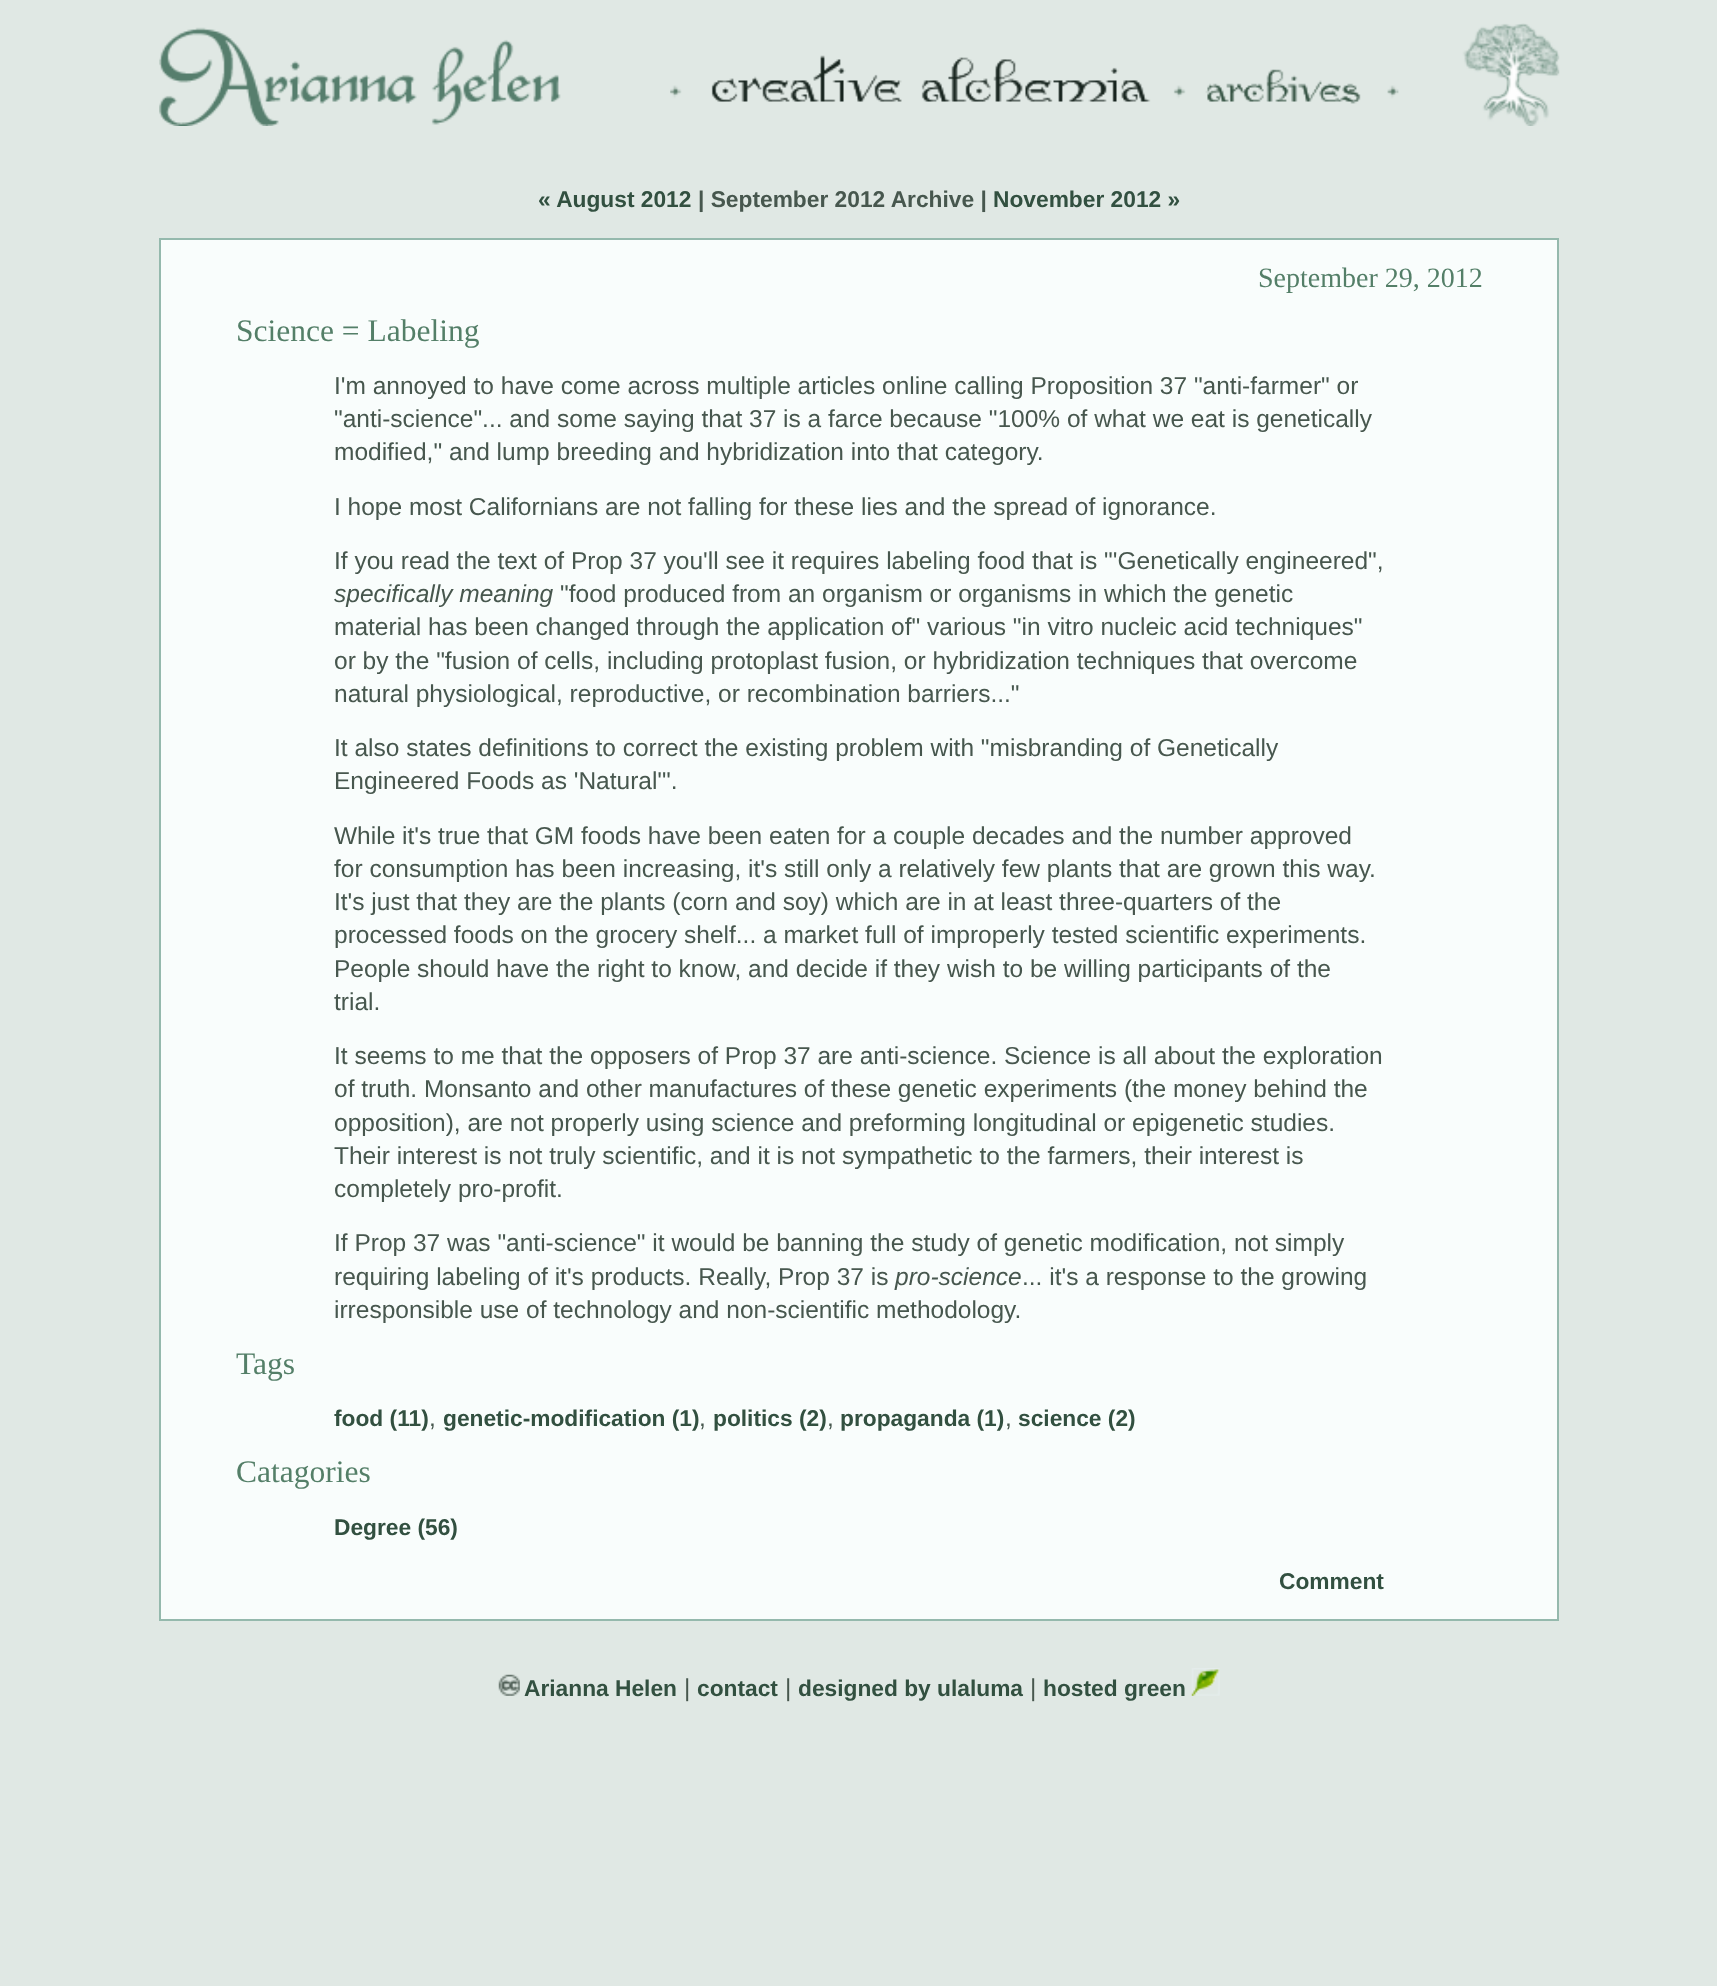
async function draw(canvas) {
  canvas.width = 1717
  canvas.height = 1986
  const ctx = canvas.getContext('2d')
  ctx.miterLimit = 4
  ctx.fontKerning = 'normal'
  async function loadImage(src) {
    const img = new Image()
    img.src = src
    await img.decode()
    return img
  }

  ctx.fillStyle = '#e0e8e4'
  ctx.fillRect(0, 0, 1717, 1986)
  ctx.drawImage(await loadImage('image0.png'), 159, 27, 402, 99)
  ctx.drawImage(await loadImage('image1.png'), 670, 55, 516, 47)
  ctx.drawImage(await loadImage('image2.png'), 1205, 69, 192, 35)
  ctx.drawImage(await loadImage('image3.png'), 1396, 23, 164, 103)
  ctx.font = 'bold 22.75px Liberation Sans'
  ctx.fillStyle = '#325040'
  ctx.fillText('« August 2012', 538, 207)
  ctx.fillStyle = '#47574e'
  ctx.fillText('| September 2012 Archive |', 698, 207)
  ctx.fillStyle = '#325040'
  ctx.fillText('November 2012 »', 993, 207)
  ctx.fillStyle = '#f9fdfc'
  ctx.beginPath()
  ctx.rect(160, 239, 1398, 1381)
  ctx.fill()
  ctx.strokeStyle = '#95b9ad'
  ctx.lineWidth = 2
  ctx.stroke()
  ctx.font = '28px Liberation Serif'
  ctx.fillStyle = '#547f68'
  ctx.fillText('September 29, 2012', 1258, 287)
  ctx.font = '31.5px Liberation Serif'
  ctx.fillText('Science = Labeling', 236, 341)
  ctx.font = '24.5px Liberation Sans'
  ctx.fillStyle = '#47574e'
  ctx.fillText('I\'m annoyed to have come across multiple articles online calling Proposition 37 "anti-farmer" or', 334, 394)
  ctx.fillText('"anti-science"... and some saying that 37 is a farce because "100% of what we eat is genetically', 334, 427)
  ctx.fillText('modified," and lump breeding and hybridization into that category.', 334, 460)
  ctx.fillText('I hope most Californians are not falling for these lies and the spread of ignorance.', 334, 515)
  ctx.fillText('If you read the text of Prop 37 you\'ll see it requires labeling food that is "\'Genetically engineered",', 334, 569)
  ctx.font = 'italic 24.5px Liberation Sans'
  ctx.fillText('specifically meaning', 334, 602)
  ctx.font = '24.5px Liberation Sans'
  ctx.fillText('"food produced from an organism or organisms in which the genetic', 560, 602)
  ctx.fillText('material has been changed through the application of" various "in vitro nucleic acid techniques"', 334, 635)
  ctx.fillText('or by the "fusion of cells, including protoplast fusion, or hybridization techniques that overcome', 334, 669)
  ctx.fillText('natural physiological, reproductive, or recombination barriers..."', 334, 702)
  ctx.fillText('It also states definitions to correct the existing problem with "misbranding of Genetically', 334, 756)
  ctx.fillText('Engineered Foods as \'Natural\'".', 334, 789)
  ctx.fillText('While it\'s true that GM foods have been eaten for a couple decades and the number approved', 334, 844)
  ctx.fillText('for consumption has been increasing, it\'s still only a relatively few plants that are grown this way.', 334, 877)
  ctx.fillText('It\'s just that they are the plants (corn and soy) which are in at least three-quarters of the', 334, 910)
  ctx.fillText('processed foods on the grocery shelf... a market full of improperly tested scientific experiments.', 334, 943)
  ctx.fillText('People should have the right to know, and decide if they wish to be willing participants of the', 334, 977)
  ctx.fillText('trial.', 334, 1010)
  ctx.fillText('It seems to me that the opposers of Prop 37 are anti-science. Science is all about the exploration', 334, 1064)
  ctx.fillText('of truth. Monsanto and other manufactures of these genetic experiments (the money behind the', 334, 1097)
  ctx.fillText('opposition), are not properly using science and preforming longitudinal or epigenetic studies.', 334, 1131)
  ctx.fillText('Their interest is not truly scientific, and it is not sympathetic to the farmers, their interest is', 334, 1164)
  ctx.fillText('completely pro-profit.', 334, 1197)
  ctx.fillText('If Prop 37 was "anti-science" it would be banning the study of genetic modification, not simply', 334, 1251)
  ctx.fillText('requiring labeling of it\'s products. Really, Prop 37 is', 334, 1285)
  ctx.font = 'italic 24.5px Liberation Sans'
  ctx.fillText('pro-science', 895, 1285)
  ctx.font = '24.5px Liberation Sans'
  ctx.fillText('... it\'s a response to the growing', 1022, 1285)
  ctx.fillText('irresponsible use of technology and non-scientific methodology.', 334, 1318)
  ctx.font = '31.5px Liberation Serif'
  ctx.fillStyle = '#547f68'
  ctx.fillText('Tags', 236, 1374)
  ctx.font = 'bold 22.75px Liberation Sans'
  ctx.fillStyle = '#325040'
  ctx.fillText('food (11)', 334, 1426)
  ctx.font = '24.5px Liberation Sans'
  ctx.fillStyle = '#47574e'
  ctx.fillText(',', 429, 1426)
  ctx.font = 'bold 22.75px Liberation Sans'
  ctx.fillStyle = '#325040'
  ctx.fillText('genetic-modification (1)', 443, 1426)
  ctx.font = '24.5px Liberation Sans'
  ctx.fillStyle = '#47574e'
  ctx.fillText(',', 699, 1426)
  ctx.font = 'bold 22.75px Liberation Sans'
  ctx.fillStyle = '#325040'
  ctx.fillText('politics (2)', 713, 1426)
  ctx.font = '24.5px Liberation Sans'
  ctx.fillStyle = '#47574e'
  ctx.fillText(',', 827, 1426)
  ctx.font = 'bold 22.75px Liberation Sans'
  ctx.fillStyle = '#325040'
  ctx.fillText('propaganda (1)', 840, 1426)
  ctx.font = '24.5px Liberation Sans'
  ctx.fillStyle = '#47574e'
  ctx.fillText(',', 1005, 1426)
  ctx.font = 'bold 22.75px Liberation Sans'
  ctx.fillStyle = '#325040'
  ctx.fillText('science (2)', 1018, 1426)
  ctx.font = '31.5px Liberation Serif'
  ctx.fillStyle = '#547f68'
  ctx.fillText('Catagories', 236, 1482)
  ctx.font = 'bold 22.75px Liberation Sans'
  ctx.fillStyle = '#325040'
  ctx.fillText('Degree (56)', 334, 1535)
  ctx.fillText('Comment', 1279, 1589)
  ctx.drawImage(await loadImage('image4.png'), 498, 1674, 22, 22)
  ctx.fillText('Arianna Helen', 524, 1696)
  ctx.font = '24.5px Liberation Sans'
  ctx.fillStyle = '#47574e'
  ctx.fillText('|', 684, 1696)
  ctx.font = 'bold 22.75px Liberation Sans'
  ctx.fillStyle = '#325040'
  ctx.fillText('contact', 697, 1696)
  ctx.font = '24.5px Liberation Sans'
  ctx.fillStyle = '#47574e'
  ctx.fillText('|', 785, 1696)
  ctx.font = 'bold 22.75px Liberation Sans'
  ctx.fillStyle = '#325040'
  ctx.fillText('designed by ulaluma', 798, 1696)
  ctx.font = '24.5px Liberation Sans'
  ctx.fillStyle = '#47574e'
  ctx.fillText('|', 1030, 1696)
  ctx.font = 'bold 22.75px Liberation Sans'
  ctx.fillStyle = '#325040'
  ctx.fillText('hosted green', 1043, 1696)
  ctx.drawImage(await loadImage('image5.png'), 1191, 1668, 29, 28)
}

draw(document.querySelector('canvas'))
